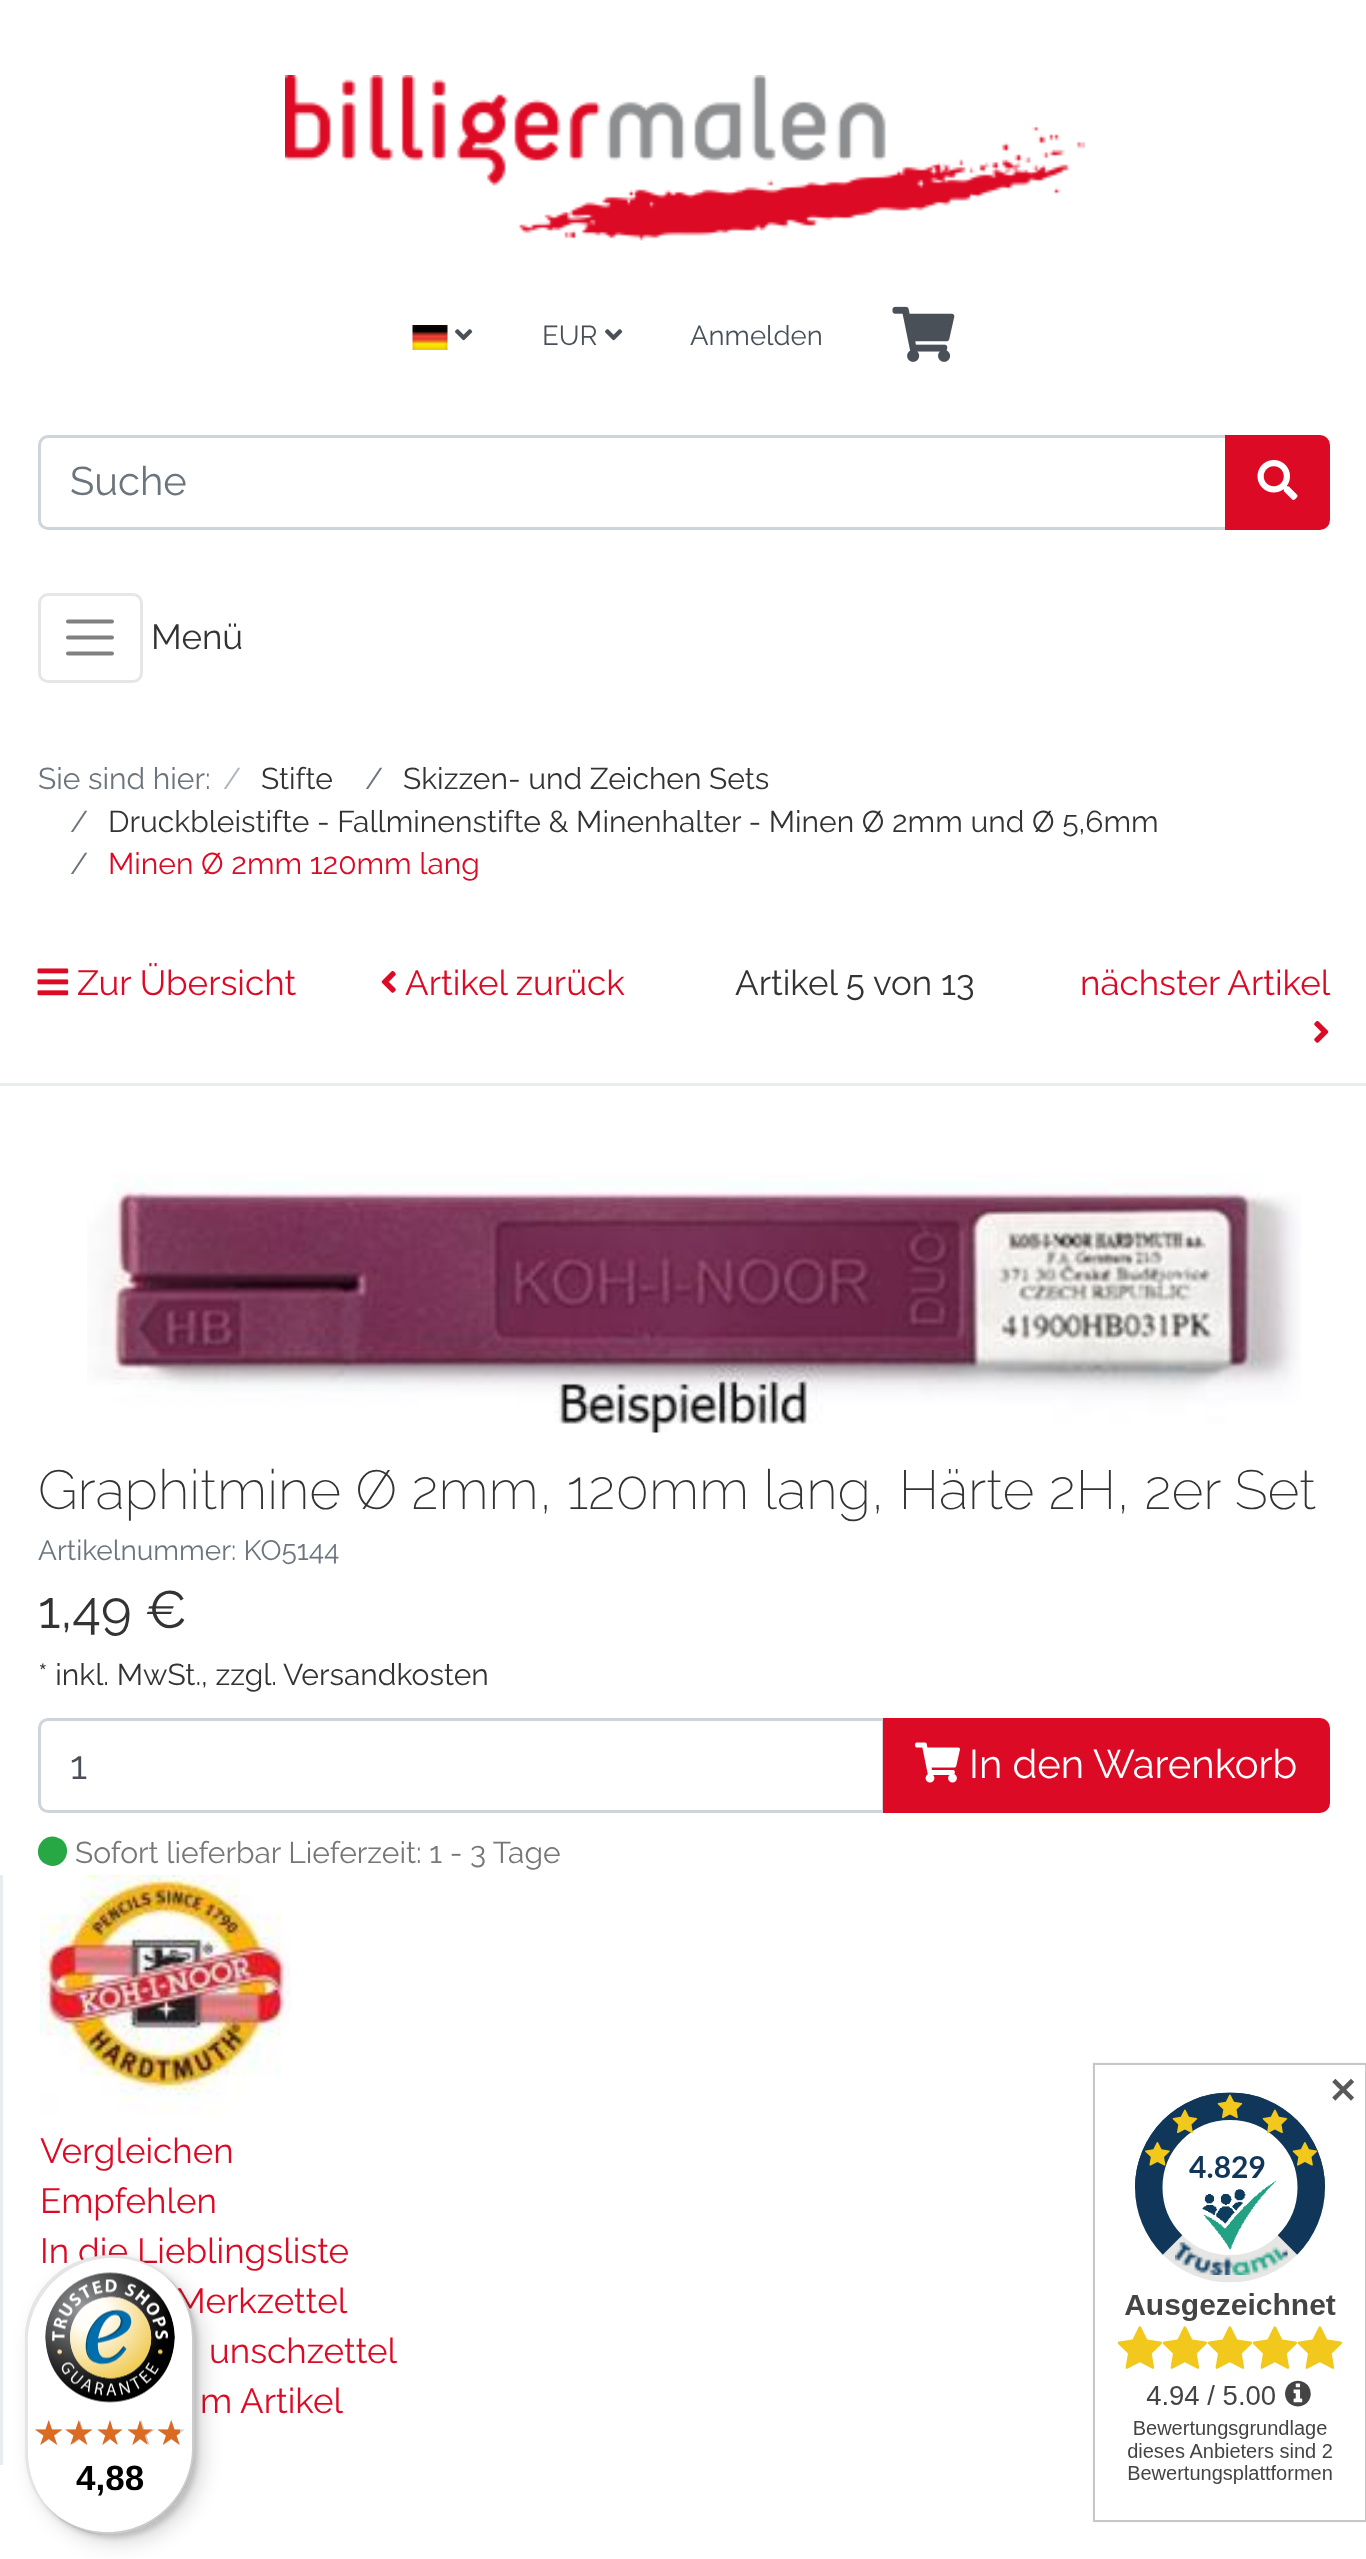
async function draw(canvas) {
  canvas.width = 1366
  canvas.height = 2559
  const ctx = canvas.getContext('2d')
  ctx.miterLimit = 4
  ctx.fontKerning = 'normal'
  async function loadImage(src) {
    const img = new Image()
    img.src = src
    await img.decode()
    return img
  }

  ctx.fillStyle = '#fff'
  ctx.fillRect(0, 0, 1366, 2559)
  ctx.drawImage(await loadImage('image0.png'), 285, 75, 800, 166)
  ctx.drawImage(await loadImage('image1.png'), 412, 325, 36, 25)
  ctx.drawImage(await loadImage('image2.png'), 455, 329, 18, 12)
  ctx.font = '100 27.5px Raleway'
  ctx.fillStyle = '#495057'
  ctx.fillText('EUR', 542, 345)
  ctx.drawImage(await loadImage('image2.png'), 605, 329, 18, 12)
  ctx.fillText('Anmelden', 690, 345)
  ctx.drawImage(await loadImage('image3.png'), 892, 306, 63, 56)
  ctx.beginPath()
  ctx.roundRect(39.5, 436.5, 1187, 92, [8.5, 0, 0, 8.5])
  ctx.strokeStyle = '#ced4da'
  ctx.lineWidth = 3
  ctx.stroke()
  ctx.font = '100 40px Raleway'
  ctx.fillStyle = '#6c757d'
  ctx.fillText('Suche', 70, 495)
  ctx.fillStyle = '#dd0a25'
  ctx.beginPath()
  ctx.roundRect(1226.5, 436.5, 102, 92, [0, 8.5, 8.5, 0])
  ctx.fill()
  ctx.strokeStyle = '#dd0a25'
  ctx.stroke()
  ctx.drawImage(await loadImage('image4.png'), 1257, 460, 41, 40)
  ctx.beginPath()
  ctx.roundRect(39.5, 594.5, 102, 87, 8.5)
  ctx.strokeStyle = '#e6e6e6'
  ctx.stroke()
  ctx.beginPath()
  ctx.moveTo(68, 621.5)
  ctx.lineTo(112, 621.5)
  ctx.moveTo(68, 637.5)
  ctx.lineTo(112, 637.5)
  ctx.moveTo(68, 653.5)
  ctx.lineTo(112, 653.5)
  ctx.strokeStyle = '#808080'
  ctx.lineWidth = 4
  ctx.lineCap = 'round'
  ctx.stroke()
  ctx.font = '100 35px Raleway'
  ctx.fillStyle = '#333'
  ctx.fillText('Menü', 151, 649)
  ctx.font = '100 30px Raleway'
  ctx.fillStyle = '#6c757d'
  ctx.fillText('Sie sind hier:', 38, 789)
  ctx.fillStyle = '#adb5bd'
  ctx.fillText('/', 223, 789)
  ctx.fillStyle = '#333'
  ctx.fillText('Stifte', 261, 789)
  ctx.fillStyle = '#6c757d'
  ctx.fillText('/', 365, 789)
  ctx.fillStyle = '#333'
  ctx.fillText('Skizzen- und Zeichen Sets', 403, 789)
  ctx.fillStyle = '#6c757d'
  ctx.fillText('/', 70, 832)
  ctx.fillStyle = '#333'
  ctx.fillText('Druckbleistifte - Fallminenstifte & Minenhalter - Minen Ø 2mm und Ø 5,6mm', 108, 832)
  ctx.fillStyle = '#6c757d'
  ctx.fillText('/', 70, 874)
  ctx.fillStyle = '#dd0a25'
  ctx.fillText('Minen Ø 2mm 120mm lang', 108, 874)
  ctx.fillStyle = '#e9ecef'
  ctx.fillRect(0, 1083, 1366, 3)
  ctx.drawImage(await loadImage('image5.png'), 37, 968, 32, 28)
  ctx.font = '100 35px Raleway'
  ctx.fillStyle = '#dd0a25'
  ctx.fillText('Zur Übersicht', 77, 995)
  ctx.drawImage(await loadImage('image6.png'), 381, 971, 15, 22)
  ctx.fillText('Artikel zurück', 405, 995)
  ctx.fillStyle = '#333'
  ctx.fillText('Artikel 5 von 13', 735, 995)
  ctx.fillStyle = '#dd0a25'
  ctx.fillText('nächster Artikel', 1080, 995)
  ctx.drawImage(await loadImage('image7.png'), 1314, 1021, 15, 22)
  ctx.drawImage(await loadImage('image8.png'), 87, 1174, 1214, 259)
  ctx.font = '100 55px "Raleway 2"'
  ctx.fillStyle = '#333'
  ctx.fillText('Graphitmine Ø 2mm, 120mm lang, Härte 2H, 2er Set', 38, 1509)
  ctx.font = '100 28px Raleway'
  ctx.fillStyle = '#6c757d'
  ctx.fillText('Artikelnummer: KO5144', 38, 1560)
  ctx.font = '100 52.5px Raleway'
  ctx.fillStyle = '#333'
  ctx.fillText('1,49 €', 38, 1628)
  ctx.font = '100 30px Raleway'
  ctx.fillText('* inkl. MwSt., zzgl.', 38, 1685)
  ctx.fillText('Versandkosten', 283, 1685)
  ctx.beginPath()
  ctx.roundRect(39.5, 1719.5, 844, 92, [8.5, 0, 0, 8.5])
  ctx.strokeStyle = '#ced4da'
  ctx.lineWidth = 3
  ctx.stroke()
  ctx.font = '100 40px Raleway'
  ctx.fillStyle = '#495057'
  ctx.fillText('1', 70, 1779)
  ctx.fillStyle = '#dd0a25'
  ctx.beginPath()
  ctx.roundRect(884.5, 1719.5, 444, 92, [0, 8.5, 8.5, 0])
  ctx.fill()
  ctx.strokeStyle = '#dd0a25'
  ctx.stroke()
  ctx.drawImage(await loadImage('image9.png'), 915, 1742, 45, 41)
  ctx.fillStyle = '#fff'
  ctx.fillText('In den Warenkorb', 969, 1778)
  ctx.fillStyle = '#28a745'
  ctx.beginPath()
  ctx.moveTo(52.5, 1836.5)
  ctx.bezierCurveTo(39, 1836.5, 32.5, 1854.5, 43.5, 1863)
  ctx.bezierCurveTo(46, 1864.5, 49.5, 1866, 52.5, 1866)
  ctx.bezierCurveTo(66, 1866, 72.5, 1848, 61.5, 1839.5)
  ctx.bezierCurveTo(59, 1838, 55.5, 1836.5, 52.5, 1836.5)
  ctx.closePath()
  ctx.fill()
  ctx.font = '100 30px Raleway'
  ctx.fillStyle = '#777'
  ctx.fillText('Sofort lieferbar Lieferzeit: 1 - 3 Tage', 75, 1863)
  ctx.fillStyle = '#e9ecef'
  ctx.fillRect(0, 1875, 3, 590)
  ctx.drawImage(await loadImage('image10.png'), 40, 1875, 250, 240)
  ctx.font = '100 35px Raleway'
  ctx.fillStyle = '#dd0a25'
  ctx.fillText('Vergleichen', 40, 2163)
  ctx.fillText('Empfehlen', 40, 2213)
  ctx.fillText('In die Lieblingsliste', 40, 2263)
  ctx.fillText('Merkzettel', 175, 2313)
  ctx.fillText('unschzettel', 209, 2363)
  ctx.fillText('m Artikel', 200, 2413)
  ctx.drawImage(await loadImage('image11.png'), 1092, 2062, 274, 461)
  ctx.font = 'bold 35px DejaVu Sans'
  ctx.fillStyle = '#595959'
  ctx.fillText('✕', 1328, 2103)
  ctx.fillStyle = '#00000026'
  ctx.filter = 'blur(10px)'
  ctx.beginPath()
  ctx.roundRect(33, 2263, 170, 280, 85)
  ctx.fill()
  ctx.filter = 'none'
  ctx.filter = 'blur(2.5px)'
  ctx.beginPath()
  ctx.roundRect(28, 2258, 170, 280, 85)
  ctx.fill()
  ctx.filter = 'none'
  ctx.fillStyle = '#fff'
  ctx.beginPath()
  ctx.roundRect(25, 2255, 170, 280, 85)
  ctx.fill()
  ctx.fillStyle = '#0000001a'
  ctx.beginPath()
  ctx.moveTo(112, 2258)
  ctx.bezierCurveTo(136, 2258, 159, 2268, 174, 2285)
  ctx.bezierCurveTo(159, 2266, 136, 2255, 110, 2255)
  ctx.bezierCurveTo(63, 2255, 25, 2293, 25, 2340)
  ctx.lineTo(25, 2450)
  ctx.bezierCurveTo(25, 2476, 36, 2499, 55, 2514)
  ctx.bezierCurveTo(38, 2499, 28, 2476, 28, 2452)
  ctx.lineTo(28, 2342)
  ctx.bezierCurveTo(28, 2296, 66, 2258, 112, 2258)
  ctx.closePath()
  ctx.fill()
  ctx.fillStyle = '#00000033'
  ctx.beginPath()
  ctx.moveTo(46, 2505)
  ctx.bezierCurveTo(61, 2524, 84, 2535, 110, 2535)
  ctx.bezierCurveTo(157, 2535, 195, 2497, 195, 2450)
  ctx.lineTo(195, 2340)
  ctx.bezierCurveTo(195, 2314, 184, 2291, 165, 2276)
  ctx.bezierCurveTo(182, 2291, 192, 2314, 192, 2338)
  ctx.lineTo(192, 2448)
  ctx.bezierCurveTo(192, 2494, 154, 2532, 108, 2532)
  ctx.bezierCurveTo(84, 2532, 61, 2522, 46, 2505)
  ctx.closePath()
  ctx.fill()
  ctx.fillStyle = '#32323233'
  ctx.beginPath()
  ctx.moveTo(36, 2493)
  ctx.bezierCurveTo(51, 2518, 79, 2535, 110, 2535)
  ctx.bezierCurveTo(157, 2535, 195, 2497, 195, 2450)
  ctx.lineTo(195, 2340)
  ctx.bezierCurveTo(195, 2309, 179, 2283, 155, 2268)
  ctx.bezierCurveTo(178, 2283, 194, 2309, 194, 2338)
  ctx.lineTo(194, 2448)
  ctx.bezierCurveTo(194, 2495, 155, 2534, 109, 2534)
  ctx.bezierCurveTo(78, 2534, 51, 2517, 36, 2493)
  ctx.closePath()
  ctx.fill()
  ctx.fillStyle = '#ffffff4d'
  ctx.beginPath()
  ctx.moveTo(51, 2511)
  ctx.bezierCurveTo(66, 2526, 87, 2535, 110, 2535)
  ctx.bezierCurveTo(157, 2535, 195, 2497, 195, 2450)
  ctx.lineTo(195, 2340)
  ctx.bezierCurveTo(195, 2317, 186, 2296, 171, 2281)
  ctx.bezierCurveTo(185, 2296, 194, 2316, 194, 2339)
  ctx.lineTo(194, 2449)
  ctx.bezierCurveTo(194, 2496, 156, 2534, 109, 2534)
  ctx.bezierCurveTo(86, 2534, 66, 2525, 51, 2511)
  ctx.closePath()
  ctx.fill()
  ctx.drawImage(await loadImage('image12.png'), 45, 2272, 130, 131)
  ctx.drawImage(await loadImage('image13.png'), 35, 2420, 27, 25)
  ctx.drawImage(await loadImage('image14.png'), 68, 2420, 24, 25)
  ctx.drawImage(await loadImage('image15.png'), 98, 2420, 24, 25)
  ctx.drawImage(await loadImage('image16.png'), 128, 2420, 27, 25)
  ctx.drawImage(await loadImage('image17.png'), 158, 2420, 27, 25)
  ctx.drawImage(await loadImage('image18.png'), 35, 2420, 27, 25)
  ctx.drawImage(await loadImage('image19.png'), 65, 2420, 27, 25)
  ctx.drawImage(await loadImage('image20.png'), 98, 2420, 25, 25)
  ctx.drawImage(await loadImage('image21.png'), 128, 2420, 25, 25)
  ctx.drawImage(await loadImage('image22.png'), 158, 2420, 22, 25)
  ctx.font = 'bold 35px Liberation Sans'
  ctx.fillStyle = '#000'
  ctx.fillText('4,88', 76, 2490)
}

draw(document.querySelector('canvas'))
